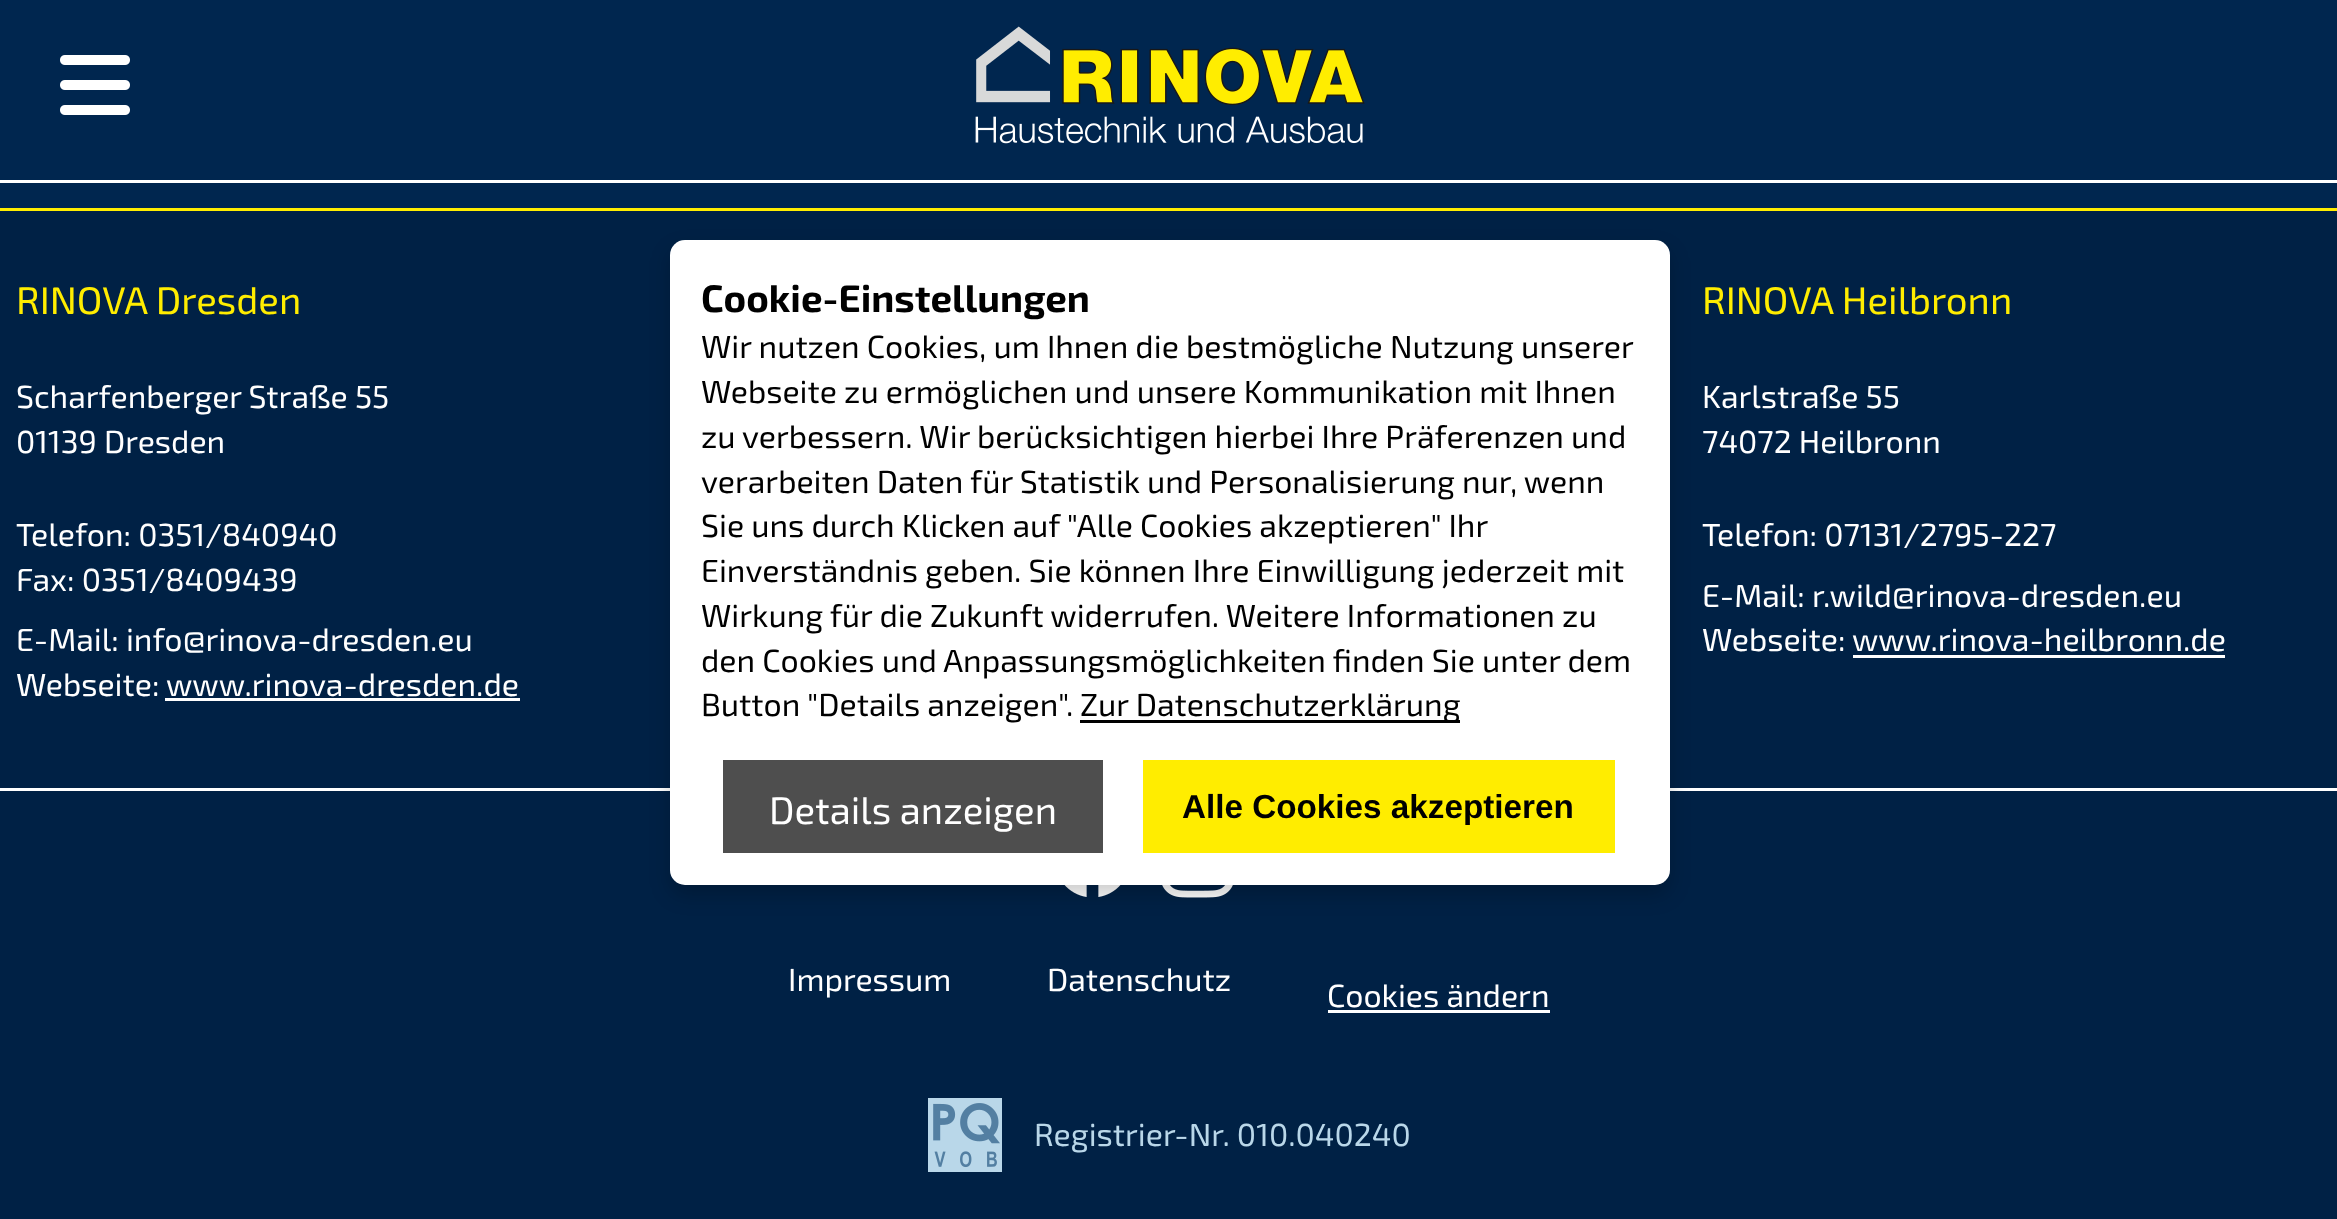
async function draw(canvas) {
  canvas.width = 2337
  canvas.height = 1219
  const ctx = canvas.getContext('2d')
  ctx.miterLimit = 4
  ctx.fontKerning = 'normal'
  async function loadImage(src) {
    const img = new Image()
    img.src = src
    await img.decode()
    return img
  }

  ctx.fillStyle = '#00264f'
  ctx.fillRect(0, 0, 2337, 1219)
  ctx.fillStyle = '#fff'
  ctx.fillRect(0, 180, 2337, 3)
  ctx.drawImage(await loadImage('image0.png'), 60, 55, 70, 60)
  ctx.drawImage(await loadImage('image1.png'), 975, 26, 390, 118)
  ctx.fillStyle = '#002145'
  ctx.fillRect(0, 211, 2337, 1008)
  ctx.fillStyle = '#fff'
  ctx.fillRect(0, 788, 2337, 3)
  ctx.drawImage(await loadImage('image2.png'), 1064, 885, 57, 12)
  ctx.drawImage(await loadImage('image3.png'), 1162, 885, 71, 13)
  ctx.fillStyle = '#00000033'
  ctx.filter = 'blur(10px)'
  ctx.beginPath()
  ctx.roundRect(670, 250, 1000, 645, 15)
  ctx.fill()
  ctx.filter = 'none'
  ctx.fillStyle = '#fff'
  ctx.beginPath()
  ctx.roundRect(670, 240, 1000, 645, 15)
  ctx.fill()
  ctx.font = 'bold 38.4px "Exo 2"'
  ctx.fillStyle = '#000'
  ctx.fillText('Cookie-Einstellungen', 701, 312)
  ctx.font = '32px "Exo 2"'
  ctx.fillText('Wir nutzen Cookies, um Ihnen die bestmögliche Nutzung unserer', 701, 358)
  ctx.fillText('Webseite zu ermöglichen und unsere Kommunikation mit Ihnen', 701, 403)
  ctx.fillText('zu verbessern. Wir berücksichtigen hierbei Ihre Präferenzen und', 701, 448)
  ctx.fillText('verarbeiten Daten für Statistik und Personalisierung nur, wenn', 701, 493)
  ctx.fillText('Sie uns durch Klicken auf "Alle Cookies akzeptieren" Ihr', 701, 537)
  ctx.fillText('Einverständnis geben. Sie können Ihre Einwilligung jederzeit mit', 701, 582)
  ctx.fillText('Wirkung für die Zukunft widerrufen. Weitere Informationen zu', 701, 627)
  ctx.fillText('den Cookies und Anpassungsmöglichkeiten finden Sie unter dem', 701, 672)
  ctx.fillText('Button "Details anzeigen".', 701, 716)
  ctx.fillRect(1080, 720, 380, 3)
  ctx.fillText('Zur Datenschutzerklärung', 1080, 716)
  ctx.fillStyle = '#4e4e4e'
  ctx.fillRect(723, 760, 380, 93)
  ctx.font = '38.4px "Exo 2"'
  ctx.fillStyle = '#fff'
  ctx.fillText('Details anzeigen', 769, 824)
  ctx.fillStyle = '#ffed00'
  ctx.fillRect(1143, 760, 472, 93)
  ctx.font = 'bold 33.25px Liberation Sans'
  ctx.fillStyle = '#000'
  ctx.fillText('Alle Cookies akzeptieren', 1182, 818)
  ctx.fillStyle = '#ffed00'
  ctx.fillRect(0, 208, 2337, 3)
  ctx.font = '38.4px "Exo 2"'
  ctx.fillText('RINOVA Dresden', 16, 314)
  ctx.font = '32px "Exo 2"'
  ctx.fillStyle = '#fff'
  ctx.fillText('Scharfenberger Straße 55', 16, 408)
  ctx.fillText('01139 Dresden', 16, 453)
  ctx.fillText('Telefon: 0351/840940', 16, 546)
  ctx.fillText('Fax: 0351/8409439', 16, 591)
  ctx.fillText('E-Mail: info@rinova-dresden.eu', 16, 651)
  ctx.fillText('Webseite:', 16, 696)
  ctx.fillText('www.rinova-dresden.de', 166, 696)
  ctx.fillRect(165, 698, 355, 3)
  ctx.font = '38.4px "Exo 2"'
  ctx.fillStyle = '#ffed00'
  ctx.fillText('RINOVA Heilbronn', 1702, 314)
  ctx.font = '32px "Exo 2"'
  ctx.fillStyle = '#fff'
  ctx.fillText('Karlstraße 55', 1702, 408)
  ctx.fillText('74072 Heilbronn', 1702, 453)
  ctx.fillText('Telefon: 07131/2795-227', 1702, 546)
  ctx.fillText('E-Mail: r.wild@rinova-dresden.eu', 1702, 607)
  ctx.fillText('Webseite:', 1702, 651)
  ctx.fillText('www.rinova-heilbronn.de', 1852, 651)
  ctx.fillRect(1853, 655, 372, 3)
  ctx.fillText('Impressum', 788, 991)
  ctx.fillText('Datenschutz', 1047, 991)
  ctx.fillText('Cookies ändern', 1327, 1007)
  ctx.fillRect(1328, 1010, 222, 3)
  ctx.drawImage(await loadImage('image4.png'), 928, 1098, 74, 74)
  ctx.fillStyle = '#b9d7e9'
  ctx.fillText('Registrier-Nr. 010.040240', 1034, 1146)
}

draw(document.querySelector('canvas'))
